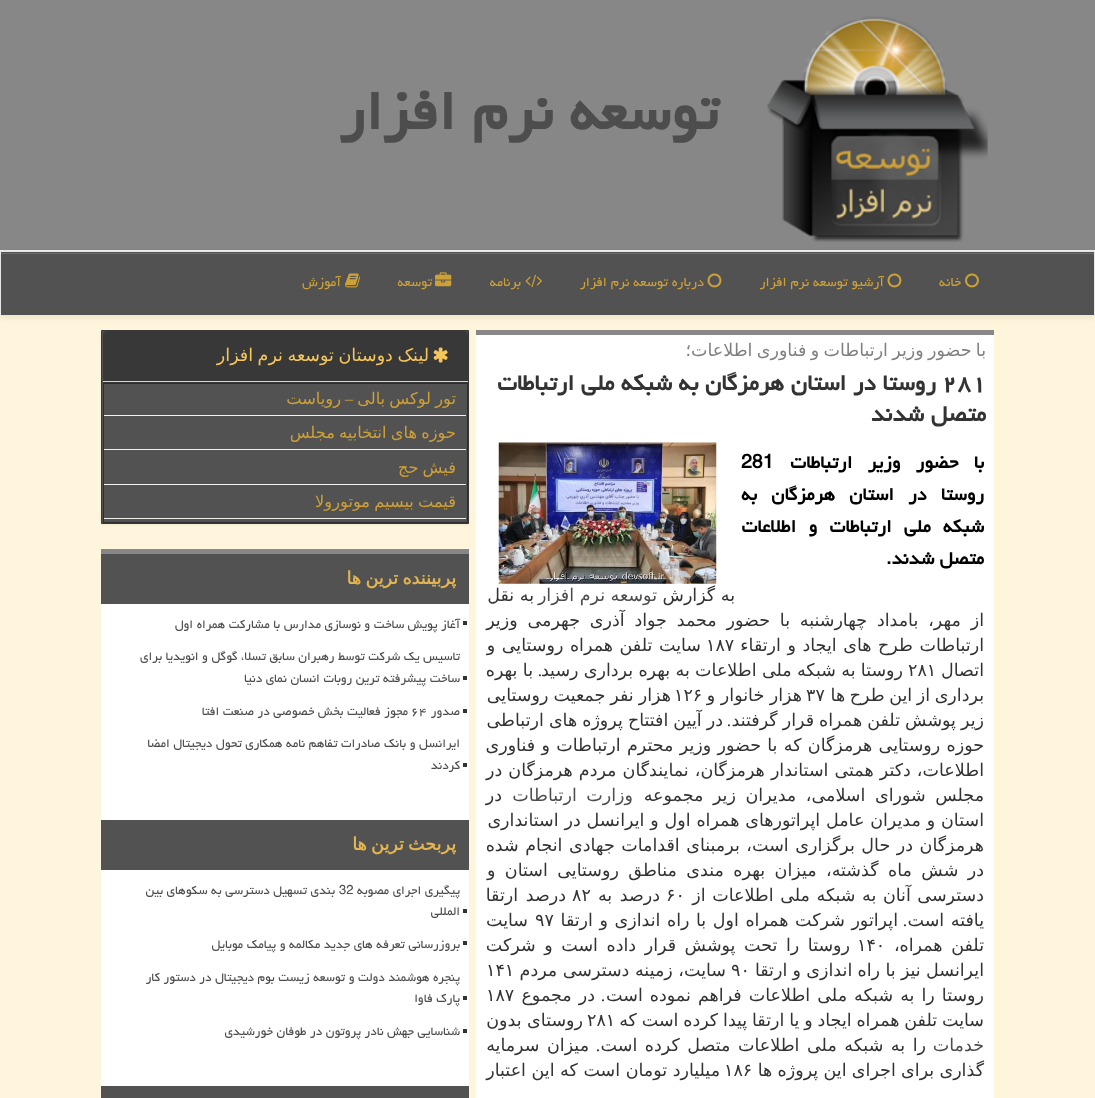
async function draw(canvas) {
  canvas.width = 1095
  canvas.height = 1098
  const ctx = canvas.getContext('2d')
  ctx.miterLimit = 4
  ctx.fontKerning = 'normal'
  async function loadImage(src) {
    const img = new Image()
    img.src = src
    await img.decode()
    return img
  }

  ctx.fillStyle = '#fff5dc'
  ctx.fillRect(0, 0, 1095, 1098)
  ctx.fillStyle = '#878787'
  ctx.fillRect(0, 0, 1095, 250)
  ctx.fillStyle = '#eee'
  ctx.fillRect(0, 250, 1095, 1)
  ctx.drawImage(await loadImage('image0.png'), 767, 16, 221, 226)
  ctx.direction = 'rtl'
  ctx.font = 'bold 70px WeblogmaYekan'
  ctx.fillStyle = '#4d4d4d'
  ctx.fillText('توسعه نرم افزار', 718, 129)
  ctx.fillStyle = '#00000012'
  ctx.filter = 'blur(3px)'
  ctx.beginPath()
  ctx.rect(0, 253, 1095, 65)
  ctx.fill()
  ctx.filter = 'none'
  ctx.fillStyle = '#525252'
  ctx.fillRect(1, 252, 1093, 63)
  ctx.fillStyle = '#6c6c6c'
  ctx.fillRect(1, 253, 1093, 1)
  ctx.strokeStyle = '#e7e7e7'
  ctx.strokeRect(0.5, 251.5, 1094, 64)
  ctx.drawImage(await loadImage('image1.png'), 965, 273, 14, 15)
  ctx.font = '16.25px WeblogmaYekan'
  ctx.fillStyle = '#cea137'
  ctx.fillText('خانه', 961, 286)
  ctx.drawImage(await loadImage('image2.png'), 887, 273, 15, 15)
  ctx.fillText('آرشیو توسعه نرم افزار', 884, 286)
  ctx.drawImage(await loadImage('image2.png'), 707, 273, 15, 15)
  ctx.fillText('درباره توسعه نرم افزار', 704, 286)
  ctx.drawImage(await loadImage('image3.png'), 525, 274, 17, 14)
  ctx.fillText('برنامه', 521, 286)
  ctx.drawImage(await loadImage('image4.png'), 435, 272, 17, 15)
  ctx.fillText('توسعه', 432, 286)
  ctx.drawImage(await loadImage('image5.png'), 345, 273, 16, 15)
  ctx.fillText('آموزش', 341, 286)
  ctx.fillStyle = '#fff'
  ctx.fillRect(476, 335, 518, 763)
  ctx.fillStyle = '#878787'
  ctx.fillRect(476, 330, 518, 5)
  ctx.wordSpacing = '-1.25px'
  ctx.font = '17.5px DejaVu Sans'
  ctx.fillStyle = '#808080'
  ctx.fillText('با حضور وزیر ارتباطات و فناوری اطلاعات؛', 986, 356)
  ctx.wordSpacing = '0px'
  ctx.direction = 'ltr'
  ctx.font = 'bold 28px WeblogmaYekan'
  ctx.fillStyle = '#333'
  ctx.fillText('۲۸۱', 942, 390)
  ctx.direction = 'rtl'
  ctx.fillText('روستا در استان هرمزگان به شبكه ملی ارتباطات', 936, 390)
  ctx.fillText('متصل شدند', 986, 421)
  ctx.wordSpacing = '10px'
  ctx.font = 'bold 22.5px WeblogmaYekan'
  ctx.fillStyle = '#000'
  ctx.fillText('با حضور وزیر ارتباطات', 984, 468)
  ctx.wordSpacing = '0px'
  ctx.direction = 'ltr'
  ctx.fillText('281', 741, 468)
  ctx.wordSpacing = '9px'
  ctx.direction = 'rtl'
  ctx.fillText('روستا در استان هرمزگان به', 984, 500)
  ctx.wordSpacing = '7px'
  ctx.fillText('شبکه ملی ارتباطات و اطلاعات', 984, 532)
  ctx.wordSpacing = '0px'
  ctx.fillText('متصل شدند.', 984, 564)
  ctx.drawImage(await loadImage('image6.png'), 498, 442, 219, 142)
  ctx.font = '17.5px DejaVu Sans'
  ctx.fillStyle = '#333'
  ctx.fillText('به گزارش', 735, 601)
  ctx.fillStyle = '#4d4d4d'
  ctx.fillText('توسعه', 657, 601)
  ctx.fillText('نرم افزار', 605, 601)
  ctx.fillStyle = '#333'
  ctx.fillText('به نقل', 534, 601)
  ctx.wordSpacing = '4.25px'
  ctx.fillText('از مهر، بامداد چهارشنبه با حضور محمد جواد آذری جهرمی وزیر', 984, 626)
  ctx.wordSpacing = '1px'
  ctx.fillText('ارتباطات طرح های ایجاد و ارتقاء', 984, 651)
  ctx.wordSpacing = '0px'
  ctx.direction = 'ltr'
  ctx.fillText('۱۸۷', 706, 651)
  ctx.wordSpacing = '1px'
  ctx.direction = 'rtl'
  ctx.fillText('سایت تلفن همراه روستایی و', 701, 651)
  ctx.wordSpacing = '0px'
  ctx.fillText('اتصال', 984, 676)
  ctx.direction = 'ltr'
  ctx.fillText('۲۸۱', 908, 676)
  ctx.wordSpacing = '-0.25px'
  ctx.direction = 'rtl'
  ctx.fillText('روستا به شبکه ملی اطلاعات به بهره برداری رسید', 903, 676)
  ctx.wordSpacing = '0px'
  ctx.font = '17.5px Liberation Serif'
  ctx.fillText('.', 542, 676)
  ctx.wordSpacing = '-0.25px'
  ctx.font = '17.5px DejaVu Sans'
  ctx.fillText('با بهره', 533, 676)
  ctx.wordSpacing = '-1px'
  ctx.fillText('برداری از این طرح ها', 984, 701)
  ctx.wordSpacing = '0px'
  ctx.direction = 'ltr'
  ctx.fillText('۳۷', 806, 701)
  ctx.direction = 'rtl'
  ctx.fillText('هزار خانوار و', 802, 701)
  ctx.direction = 'ltr'
  ctx.fillText('۱۲۶', 674, 701)
  ctx.wordSpacing = '-0.5px'
  ctx.direction = 'rtl'
  ctx.fillText('هزار نفر جمعیت روستایی', 671, 701)
  ctx.fillText('زیر پوشش تلفن همراه قرار گرفتند', 984, 726)
  ctx.wordSpacing = '0px'
  ctx.font = '17.5px Liberation Serif'
  ctx.fillText('.', 731, 726)
  ctx.wordSpacing = '-0.5px'
  ctx.font = '17.5px DejaVu Sans'
  ctx.fillText('در آیین افتتاح پروژه های ارتباطی', 723, 726)
  ctx.wordSpacing = '0.75px'
  ctx.fillText('حوزه روستایی هرمزگان که با حضور وزیر محترم ارتباطات و فناوری', 984, 751)
  ctx.wordSpacing = '0.5px'
  ctx.fillText('اطلاعات، دکتر همتی استاندار هرمزگان، نمایندگان مردم هرمزگان در', 984, 776)
  ctx.wordSpacing = '4px'
  ctx.fillText('مجلس شورای اسلامی، مدیران زیر مجموعه', 984, 801)
  ctx.fillStyle = '#4d4d4d'
  ctx.fillText('وزارت ارتباطات', 633, 801)
  ctx.wordSpacing = '0px'
  ctx.fillStyle = '#333'
  ctx.fillText('در', 502, 801)
  ctx.wordSpacing = '0.25px'
  ctx.fillText('استان و مدیران عامل اپراتورهای همراه اول و ایرانسل در استانداری', 984, 826)
  ctx.wordSpacing = '1px'
  ctx.fillText('هرمزگان در حال برگزاری است، برمبنای اقدامات جهادی انجام شده', 984, 851)
  ctx.wordSpacing = '3.9px'
  ctx.fillText('در شش ماه گذشته، میزان بهره مندی مناطق روستایی استان و', 984, 876)
  ctx.wordSpacing = '1px'
  ctx.fillText('دسترسی آنان به شبکه ملی اطلاعات از', 984, 901)
  ctx.wordSpacing = '0px'
  ctx.direction = 'ltr'
  ctx.fillText('۶۰', 666, 901)
  ctx.wordSpacing = '2px'
  ctx.direction = 'rtl'
  ctx.fillText('درصد به', 660, 901)
  ctx.wordSpacing = '0px'
  ctx.direction = 'ltr'
  ctx.fillText('۸۲', 572, 901)
  ctx.wordSpacing = '2px'
  ctx.direction = 'rtl'
  ctx.fillText('درصد ارتقا', 566, 901)
  ctx.wordSpacing = '1px'
  ctx.fillText('یافته است', 984, 926)
  ctx.wordSpacing = '0px'
  ctx.font = '17.5px Liberation Serif'
  ctx.fillText('.', 907, 926)
  ctx.wordSpacing = '1px'
  ctx.font = '17.5px DejaVu Sans'
  ctx.fillText('اپراتور شرکت همراه اول با راه اندازی و ارتقا', 898, 926)
  ctx.wordSpacing = '0px'
  ctx.direction = 'ltr'
  ctx.fillText('۹۷', 535, 926)
  ctx.direction = 'rtl'
  ctx.fillText('سایت', 528, 926)
  ctx.wordSpacing = '3px'
  ctx.fillText('تلفن همراه،', 984, 951)
  ctx.wordSpacing = '0px'
  ctx.direction = 'ltr'
  ctx.fillText('۱۴۰', 857, 951)
  ctx.wordSpacing = '3px'
  ctx.direction = 'rtl'
  ctx.fillText('روستا را تحت پوشش قرار داده است و شرکت', 850, 951)
  ctx.wordSpacing = '-0.25px'
  ctx.fillText('ایرانسل نیز با راه اندازی و ارتقا', 984, 976)
  ctx.wordSpacing = '0px'
  ctx.direction = 'ltr'
  ctx.fillText('۹۰', 731, 976)
  ctx.direction = 'rtl'
  ctx.fillText('سایت، زمینه دسترسی مردم', 726, 976)
  ctx.direction = 'ltr'
  ctx.fillText('۱۴۱', 486, 976)
  ctx.wordSpacing = '1.5px'
  ctx.direction = 'rtl'
  ctx.fillText('روستا را به شبکه ملی اطلاعات فراهم نموده است', 984, 1001)
  ctx.wordSpacing = '0px'
  ctx.font = '17.5px Liberation Serif'
  ctx.fillText('.', 605, 1001)
  ctx.wordSpacing = '1.5px'
  ctx.font = '17.5px DejaVu Sans'
  ctx.fillText('در مجموع', 595, 1001)
  ctx.wordSpacing = '0px'
  ctx.direction = 'ltr'
  ctx.fillText('۱۸۷', 486, 1001)
  ctx.wordSpacing = '-0.75px'
  ctx.direction = 'rtl'
  ctx.fillText('سایت تلفن همراه ایجاد و یا ارتقا پیدا کرده است که', 984, 1026)
  ctx.wordSpacing = '0px'
  ctx.direction = 'ltr'
  ctx.fillText('۲۸۱', 587, 1026)
  ctx.direction = 'rtl'
  ctx.fillText('روستای بدون', 583, 1026)
  ctx.fillStyle = '#4d4d4d'
  ctx.fillText('خدمات', 984, 1051)
  ctx.wordSpacing = '2px'
  ctx.fillStyle = '#333'
  ctx.fillText('را به شبکه ملی اطلاعات متصل کرده است', 926, 1051)
  ctx.wordSpacing = '0px'
  ctx.font = '17.5px Liberation Serif'
  ctx.fillText('.', 600, 1051)
  ctx.wordSpacing = '2px'
  ctx.font = '17.5px DejaVu Sans'
  ctx.fillText('میزان سرمایه', 589, 1051)
  ctx.wordSpacing = '-0.25px'
  ctx.fillText('گذاری برای اجرای این پروژه ها', 984, 1076)
  ctx.wordSpacing = '0px'
  ctx.direction = 'ltr'
  ctx.fillText('۱۸۶', 724, 1076)
  ctx.direction = 'rtl'
  ctx.fillText('میلیارد تومان است که این اعتبار', 720, 1076)
  ctx.fillStyle = '#0000000d'
  ctx.filter = 'blur(1px)'
  ctx.beginPath()
  ctx.rect(101, 331, 368, 194)
  ctx.fill()
  ctx.filter = 'none'
  ctx.fillStyle = '#525252'
  ctx.beginPath()
  ctx.rect(101.5, 330.5, 367, 193)
  ctx.fill()
  ctx.strokeStyle = '#383838'
  ctx.stroke()
  ctx.fillStyle = '#383838'
  ctx.beginPath()
  ctx.roundRect(103, 331, 365, 52, [4, 4, 0, 0])
  ctx.fill()
  ctx.fillStyle = '#ebccd1'
  ctx.fillRect(103, 381, 365, 1)
  ctx.drawImage(await loadImage('image7.png'), 433, 347, 15, 16)
  ctx.wordSpacing = '-1px'
  ctx.fillStyle = '#f5c75b'
  ctx.fillText('لینک دوستان توسعه نرم افزار', 429, 361)
  ctx.strokeStyle = '#2e2e2e'
  ctx.strokeRect(103.5, 383.5, 364, 139)
  ctx.fillStyle = '#f1f1f1'
  ctx.fillRect(104, 415, 362, 1)
  ctx.font = '16.25px DejaVu Sans'
  ctx.fillStyle = '#cea137'
  ctx.fillText('تور لوکس بالی', 456, 404)
  ctx.wordSpacing = '0px'
  ctx.font = '16.25px Liberation Serif'
  ctx.fillText('–', 353, 404)
  ctx.font = '16.25px DejaVu Sans'
  ctx.fillText('رویاست', 341, 404)
  ctx.fillStyle = '#f1f1f1'
  ctx.fillRect(104, 449, 362, 1)
  ctx.wordSpacing = '-1px'
  ctx.fillStyle = '#cea137'
  ctx.fillText('حوزه های انتخابیه مجلس', 456, 438)
  ctx.fillStyle = '#f1f1f1'
  ctx.fillRect(104, 484, 362, 1)
  ctx.fillStyle = '#cea137'
  ctx.fillText('فیش حج', 456, 473)
  ctx.fillStyle = '#f1f1f1'
  ctx.fillRect(104, 518, 362, 1)
  ctx.fillStyle = '#cea137'
  ctx.fillText('قیمت بیسیم موتورولا', 456, 507)
  ctx.fillStyle = '#fff'
  ctx.fillRect(101, 604, 368, 482)
  ctx.fillStyle = '#878787'
  ctx.fillRect(101, 549, 368, 5)
  ctx.fillStyle = '#525252'
  ctx.fillRect(101, 554, 368, 50)
  ctx.wordSpacing = '-1.25px'
  ctx.font = 'bold 17.5px DejaVu Sans'
  ctx.fillStyle = '#e2b451'
  ctx.fillText('پربیننده ترین ها', 456, 584)
  ctx.fillStyle = '#333'
  ctx.fillRect(463, 621, 4, 4)
  ctx.wordSpacing = '0px'
  ctx.font = '15px WeblogmaYekan'
  ctx.fillStyle = '#4d4d4d'
  ctx.fillText('آغاز پویش ساخت و نوسازی مدارس با مشارکت همراه اول', 460, 628)
  ctx.fillStyle = '#333'
  ctx.fillRect(463, 676, 4, 4)
  ctx.fillStyle = '#4d4d4d'
  ctx.fillText('تاسیس یک شرکت توسط رهبران سابق تسلا، گوگل و انویدیا برای', 460, 660)
  ctx.fillText('ساخت پیشرفته ترین روبات انسان نمای دنیا', 460, 682)
  ctx.fillStyle = '#333'
  ctx.fillRect(463, 709, 4, 4)
  ctx.fillStyle = '#4d4d4d'
  ctx.fillText('صدور', 460, 715)
  ctx.direction = 'ltr'
  ctx.fillText('۶۴', 411, 715)
  ctx.direction = 'rtl'
  ctx.fillText('مجوز فعالیت بخش خصوصی در صنعت افتا', 408, 715)
  ctx.fillStyle = '#333'
  ctx.fillRect(463, 763, 4, 4)
  ctx.fillStyle = '#4d4d4d'
  ctx.fillText('ایرانسل و بانک صادرات تفاهم نامه همکاری تحول دیجیتال امضا', 460, 747)
  ctx.fillText('کردند', 460, 769)
  ctx.fillStyle = '#525252'
  ctx.fillRect(101, 820, 368, 50)
  ctx.wordSpacing = '-1.25px'
  ctx.font = 'bold 17.5px DejaVu Sans'
  ctx.fillStyle = '#e2b451'
  ctx.fillText('پربحث ترین ها', 456, 850)
  ctx.fillStyle = '#333'
  ctx.fillRect(463, 909, 4, 4)
  ctx.wordSpacing = '0px'
  ctx.font = '15px WeblogmaYekan'
  ctx.fillStyle = '#4d4d4d'
  ctx.fillText('پیگیری اجرای مصوبه', 460, 894)
  ctx.direction = 'ltr'
  ctx.fillText('32', 339, 894)
  ctx.direction = 'rtl'
  ctx.fillText('بندی تسهیل دسترسی به سکوهای بین', 335, 894)
  ctx.fillText('المللی', 460, 915)
  ctx.fillStyle = '#333'
  ctx.fillRect(463, 941, 4, 4)
  ctx.fillStyle = '#4d4d4d'
  ctx.fillText('بروزرسانی تعرفه های جدید مکالمه و پیامک موبایل', 460, 948)
  ctx.fillStyle = '#333'
  ctx.fillRect(463, 996, 4, 4)
  ctx.fillStyle = '#4d4d4d'
  ctx.fillText('پنجره هوشمند دولت و توسعه زیست بوم دیجیتال در دستور کار', 460, 981)
  ctx.fillText('پارک فاوا', 460, 1002)
  ctx.fillStyle = '#333'
  ctx.fillRect(463, 1029, 4, 4)
  ctx.fillStyle = '#4d4d4d'
  ctx.fillText('شناسایی جهش نادر پروتون در طوفان خورشیدی', 460, 1035)
  ctx.fillStyle = '#525252'
  ctx.fillRect(101, 1086, 368, 12)
}

draw(document.querySelector('canvas'))
